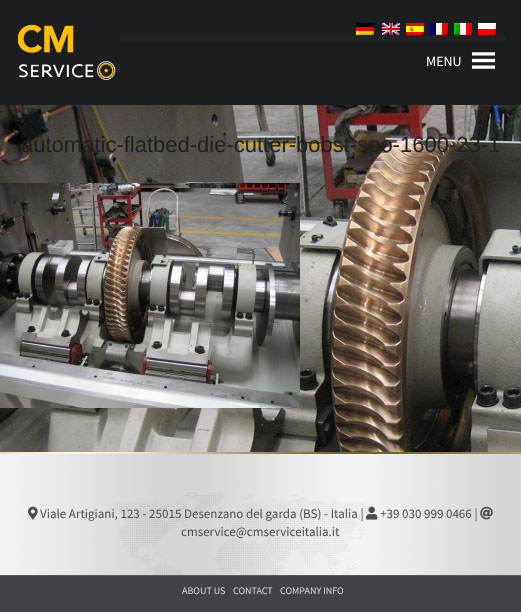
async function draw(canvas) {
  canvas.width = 521
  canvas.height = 612
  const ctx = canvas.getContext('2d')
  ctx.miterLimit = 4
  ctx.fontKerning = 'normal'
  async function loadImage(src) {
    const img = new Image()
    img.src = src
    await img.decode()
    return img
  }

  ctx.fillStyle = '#fff'
  ctx.fillRect(0, 0, 521, 612)
  ctx.drawImage(await loadImage('image0.png'), 0, 105, 521, 347)
  ctx.fillStyle = '#1b1d1f'
  ctx.fillRect(0, 0, 521, 105)
  ctx.drawImage(await loadImage('image1.png'), 18, 24, 98, 56)
  ctx.drawImage(await loadImage('image2.png'), 356, 23, 18, 12)
  ctx.drawImage(await loadImage('image3.png'), 382, 23, 18, 12)
  ctx.drawImage(await loadImage('image4.png'), 406, 23, 18, 12)
  ctx.drawImage(await loadImage('image5.png'), 430, 23, 18, 12)
  ctx.drawImage(await loadImage('image6.png'), 454, 23, 18, 12)
  ctx.drawImage(await loadImage('image7.png'), 478, 23, 18, 12)
  ctx.fillStyle = '#333'
  ctx.fillRect(120, 36, 386, 2)
  ctx.fillStyle = '#222'
  ctx.beginPath()
  ctx.roundRect(120, 36, 386, 40, 2)
  ctx.fill()
  ctx.fillStyle = '#1b1d1f'
  ctx.fillRect(120, 41, 386, 35)
  ctx.font = '14px Source Sans Pro'
  ctx.fillStyle = '#fff'
  ctx.fillText('MENU', 426, 66)
  ctx.drawImage(await loadImage('image8.png'), 471, 52, 25, 17)
  ctx.font = '22px Liberation Sans'
  ctx.fillStyle = '#202020'
  ctx.fillText('automatic-flatbed-die-cutter-bobst-spo-1600-23-1', 21, 152)
  ctx.drawImage(await loadImage('image9.png'), 0, 183, 300, 225)
  ctx.drawImage(await loadImage('image10.png'), 0, 454, 521, 121)
  ctx.drawImage(await loadImage('image11.png'), 0, 452, 521, 2)
  ctx.drawImage(await loadImage('image12.png'), 28, 506, 10, 14)
  ctx.font = '13px Source Sans Pro'
  ctx.fillStyle = '#4e4d4d'
  ctx.fillText('Viale Artigiani, 123 - 25015 Desenzano del garda (BS) - Italia |', 40, 518)
  ctx.drawImage(await loadImage('image13.png'), 366, 506, 12, 14)
  ctx.fillText('+39 030 999 0466 |', 380, 518)
  ctx.drawImage(await loadImage('image14.png'), 480, 506, 13, 14)
  ctx.fillText('cmservice@cmserviceitalia.it', 181, 536)
  ctx.fillStyle = '#3f4348'
  ctx.fillRect(0, 576, 521, 36)
  ctx.fillStyle = '#5a5a5a'
  ctx.fillRect(0, 575, 521, 1)
  ctx.font = '10px Source Sans Pro'
  ctx.fillStyle = '#dadada'
  ctx.fillText('ABOUT US', 182, 594)
  ctx.fillText('CONTACT', 233, 594)
  ctx.fillText('COMPANY INFO', 280, 594)
}

draw(document.querySelector('canvas'))
